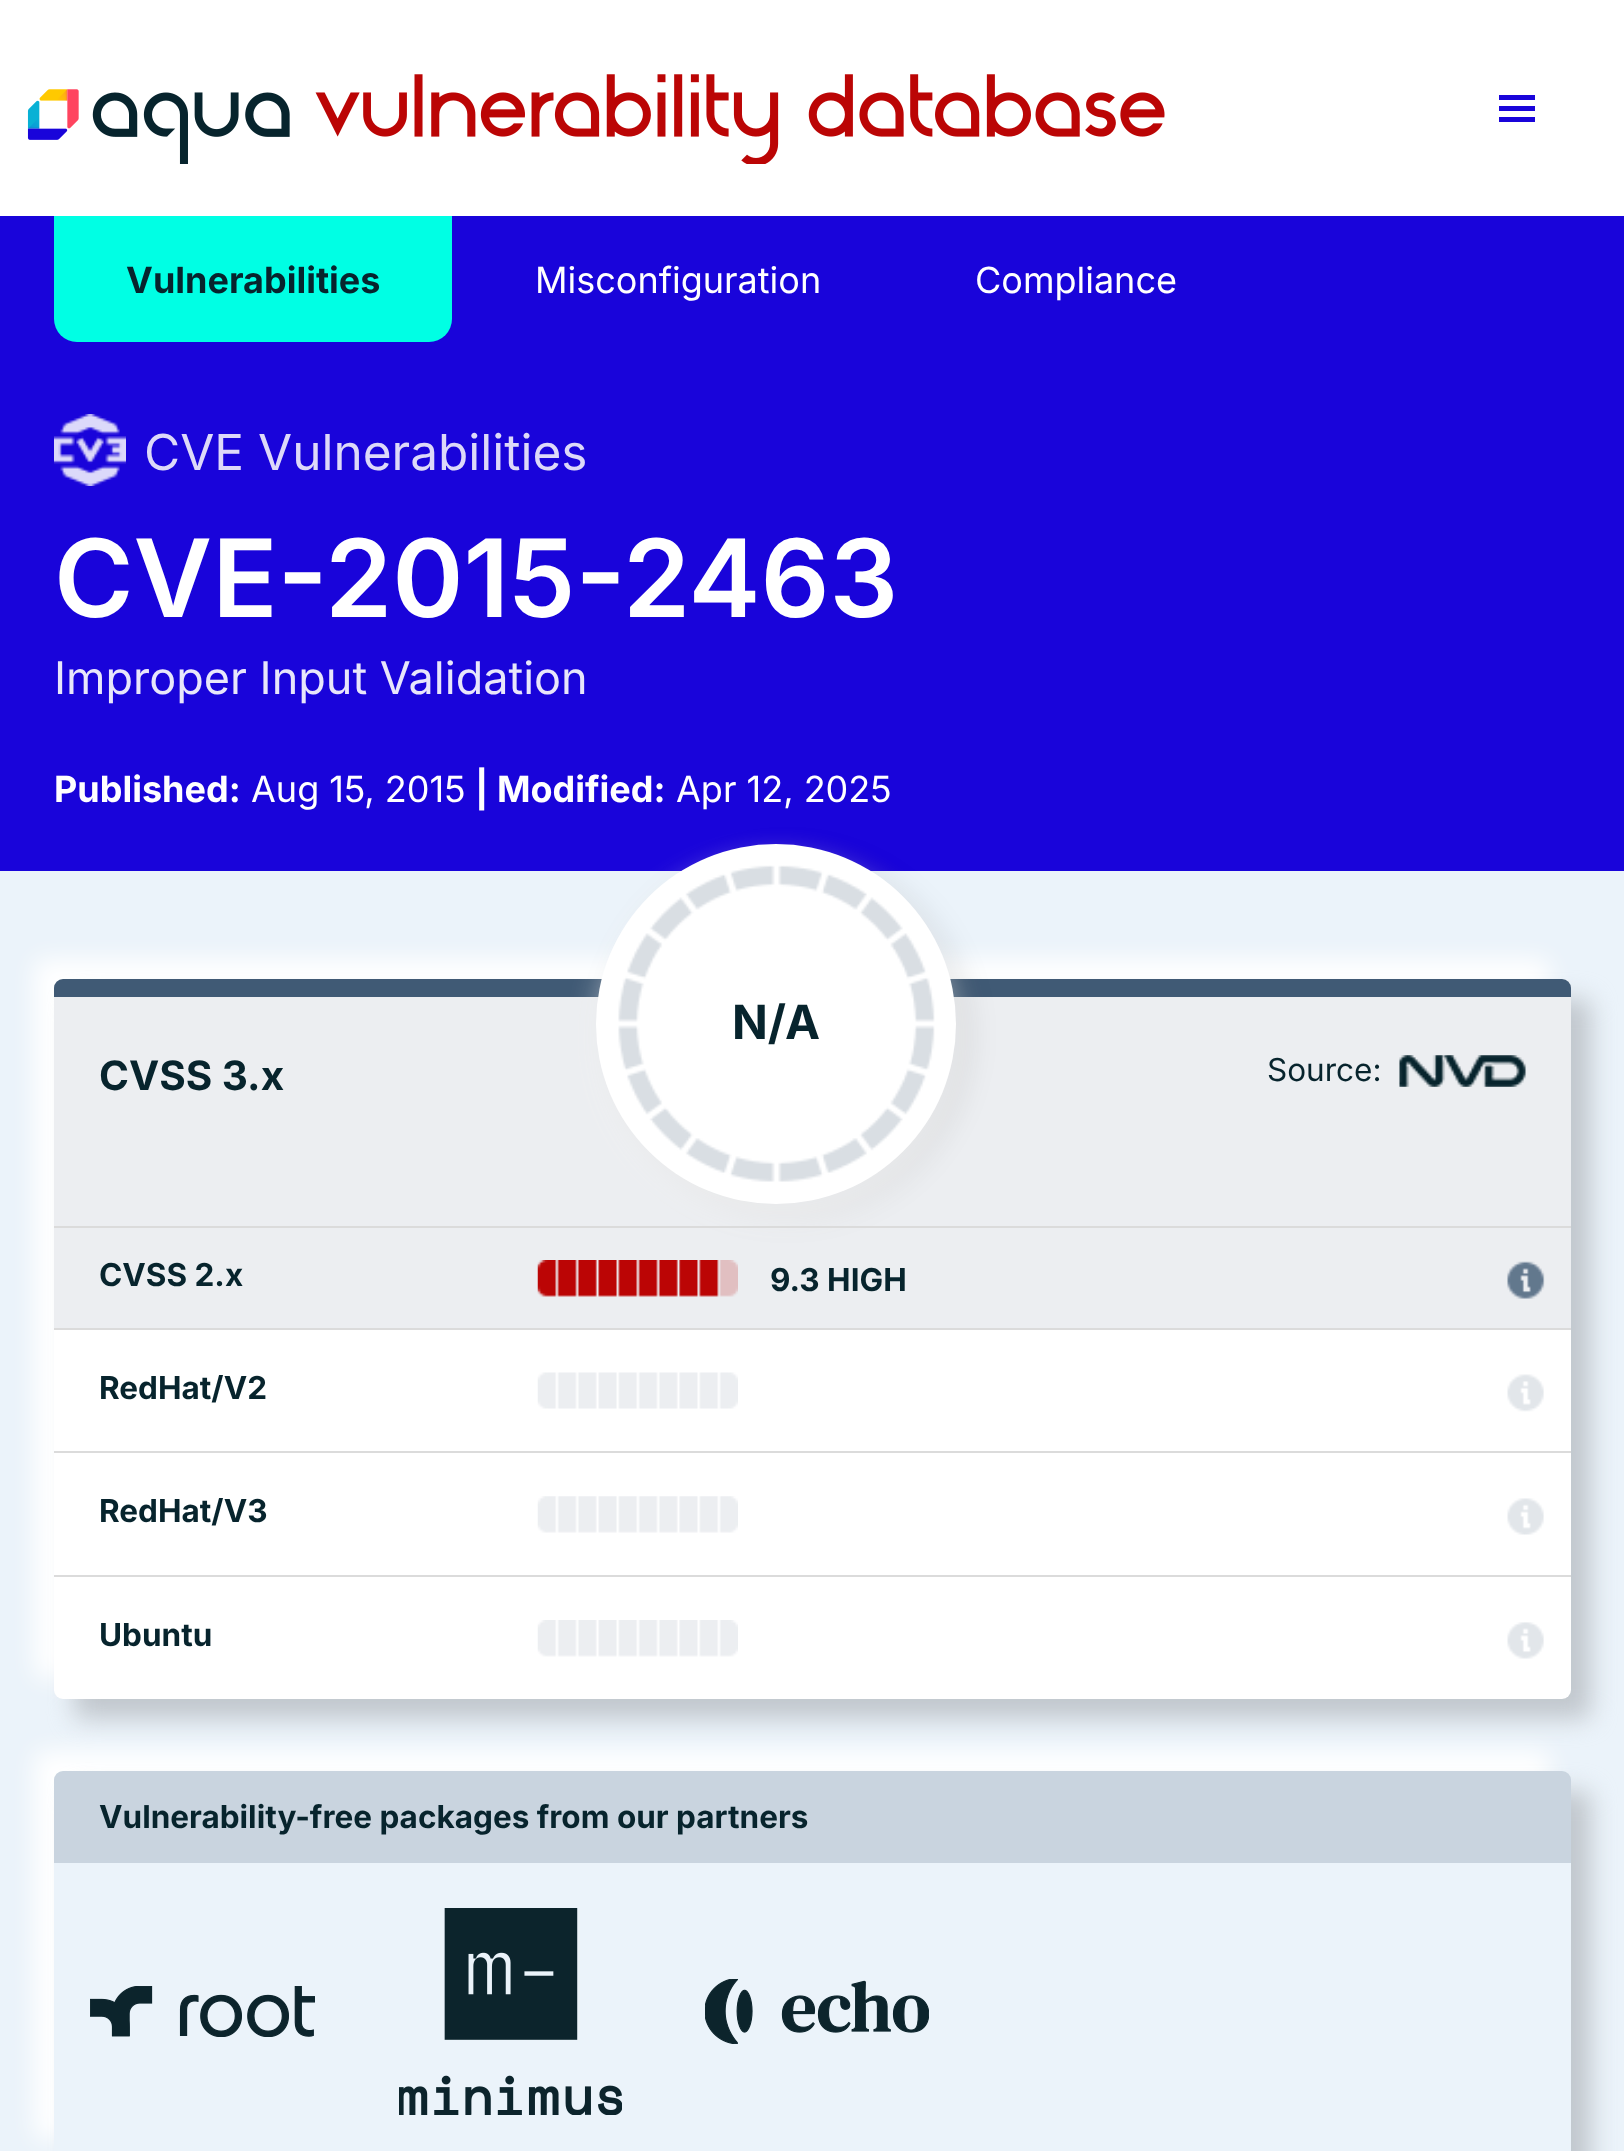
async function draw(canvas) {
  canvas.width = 1624
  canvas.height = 2151
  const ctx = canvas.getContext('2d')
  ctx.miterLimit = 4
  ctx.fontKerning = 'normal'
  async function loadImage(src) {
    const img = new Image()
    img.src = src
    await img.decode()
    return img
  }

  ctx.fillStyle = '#ebf3fa'
  ctx.fillRect(0, 0, 1624, 2151)
  ctx.fillStyle = '#fff'
  ctx.fillRect(0, 0, 1624, 216)
  ctx.drawImage(await loadImage('image0.png'), 27, 74, 1138, 90)
  ctx.fillStyle = '#1904da'
  ctx.fillRect(1499, 95, 36, 5)
  ctx.fillRect(1499, 106, 36, 5)
  ctx.fillRect(1499, 117, 36, 5)
  ctx.fillRect(0, 216, 1624, 655)
  ctx.fillStyle = '#00ffe4'
  ctx.beginPath()
  ctx.roundRect(54, 216, 398, 126, [0, 0, 23, 23])
  ctx.fill()
  ctx.font = 'bold 36px Inter'
  ctx.fillStyle = '#07242d'
  ctx.fillText('Vulnerabilities', 126, 293)
  ctx.font = '36px Inter'
  ctx.fillStyle = '#fff'
  ctx.fillText('Misconfiguration', 535, 293)
  ctx.fillText('Compliance', 975, 293)
  ctx.drawImage(await loadImage('image1.png'), 54, 414, 72, 72)
  ctx.font = '49.5px Inter'
  ctx.fillStyle = '#ddd9f9'
  ctx.fillText('CVE Vulnerabilities', 144, 470)
  ctx.font = '600 108px Inter'
  ctx.fillStyle = '#fff'
  ctx.fillText('CVE-2015-2463', 54, 617)
  ctx.font = '45px Inter'
  ctx.fillStyle = '#e8e6fb'
  ctx.fillText('Improper Input Validation', 54, 694)
  ctx.font = 'bold 36px Inter'
  ctx.fillStyle = '#fff'
  ctx.fillText('Published:', 54, 802)
  ctx.font = '36px Inter'
  ctx.fillText('Aug 15, 2015', 251, 802)
  ctx.font = 'bold 36px Inter'
  ctx.fillText('| Modified:', 475, 802)
  ctx.font = '36px Inter'
  ctx.fillText('Apr 12, 2025', 676, 802)
  ctx.filter = 'blur(12.5px)'
  ctx.beginPath()
  ctx.roundRect(34, 959, 1516, 720, 9)
  ctx.fill()
  ctx.filter = 'none'
  ctx.fillStyle = '#c1c7cd'
  ctx.filter = 'blur(12.5px)'
  ctx.beginPath()
  ctx.roundRect(74, 999, 1517, 720, 9)
  ctx.fill()
  ctx.filter = 'none'
  ctx.fillStyle = '#fff'
  ctx.beginPath()
  ctx.roundRect(54, 979, 1517, 720, 9)
  ctx.fill()
  ctx.fillStyle = '#405a751a'
  ctx.beginPath()
  ctx.roundRect(54, 979, 1517, 349, [9, 9, 0, 0])
  ctx.fill()
  ctx.fillStyle = '#405a75'
  ctx.beginPath()
  ctx.roundRect(54, 979, 1517, 18, [9, 9, 0, 0])
  ctx.fill()
  ctx.fillStyle = '#00000017'
  ctx.filter = 'blur(14.5px)'
  ctx.beginPath()
  ctx.roundRect(605, 853, 365, 364, 182)
  ctx.fill()
  ctx.filter = 'none'
  ctx.fillStyle = '#ffffff73'
  ctx.filter = 'blur(14.5px)'
  ctx.beginPath()
  ctx.roundRect(594, 857, 365, 365, 182.5)
  ctx.fill()
  ctx.filter = 'none'
  ctx.fillStyle = '#fff'
  ctx.beginPath()
  ctx.arc(776, 1024, 180, 0, 2 * Math.PI)
  ctx.fill()
  ctx.font = 'bold 47px Inter'
  ctx.fillStyle = '#07242d'
  ctx.fillText('N/A', 732, 1039)
  ctx.drawImage(await loadImage('image2.png'), 618, 865, 317, 317)
  ctx.font = 'bold 40.5px Inter'
  ctx.fillText('CVSS 3.x', 99, 1090)
  ctx.font = '31.5px Inter'
  ctx.fillText('Source:', 1267, 1081)
  ctx.drawImage(await loadImage('image3.png'), 1399, 1055, 127, 32)
  ctx.fillStyle = '#dbdbdb'
  ctx.fillRect(54, 1226, 1517, 2)
  ctx.font = 'bold 31.5px Inter'
  ctx.fillStyle = '#07242d'
  ctx.fillText('CVSS 2.x', 99, 1286)
  ctx.drawImage(await loadImage('image4.png'), 537, 1260, 201, 37)
  ctx.fillText('9.3 HIGH', 770, 1291)
  ctx.drawImage(await loadImage('image5.png'), 1507, 1261, 38, 38)
  ctx.fillStyle = '#dbdbdb'
  ctx.fillRect(54, 1328, 1517, 2)
  ctx.fillStyle = '#07242d'
  ctx.fillText('RedHat/V2', 99, 1399)
  ctx.drawImage(await loadImage('image6.png'), 537, 1372, 201, 37)
  ctx.drawImage(await loadImage('image7.png'), 1507, 1374, 37, 38)
  ctx.fillStyle = '#dbdbdb'
  ctx.fillRect(54, 1451, 1517, 2)
  ctx.fillStyle = '#07242d'
  ctx.fillText('RedHat/V3', 99, 1522)
  ctx.drawImage(await loadImage('image8.png'), 537, 1496, 201, 37)
  ctx.drawImage(await loadImage('image9.png'), 1507, 1498, 37, 37)
  ctx.fillStyle = '#dbdbdb'
  ctx.fillRect(54, 1575, 1517, 2)
  ctx.fillStyle = '#07242d'
  ctx.fillText('Ubuntu', 99, 1646)
  ctx.drawImage(await loadImage('image10.png'), 537, 1620, 201, 37)
  ctx.drawImage(await loadImage('image11.png'), 1507, 1622, 37, 37)
  ctx.fillStyle = '#fff'
  ctx.filter = 'blur(12.5px)'
  ctx.beginPath()
  ctx.roundRect(34, 1751, 1516, 389, 9)
  ctx.fill()
  ctx.filter = 'none'
  ctx.fillStyle = '#c1c7cd'
  ctx.filter = 'blur(12.5px)'
  ctx.beginPath()
  ctx.roundRect(74, 1791, 1517, 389, 9)
  ctx.fill()
  ctx.filter = 'none'
  ctx.fillStyle = '#ebf3fa'
  ctx.beginPath()
  ctx.roundRect(54, 1771, 1517, 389, 9)
  ctx.fill()
  ctx.fillStyle = '#405a7533'
  ctx.beginPath()
  ctx.roundRect(54, 1771, 1517, 92, [9, 9, 0, 0])
  ctx.fill()
  ctx.fillStyle = '#07242d'
  ctx.fillText('Vulnerability-free packages from our partners', 99, 1828)
  ctx.drawImage(await loadImage('image12.png'), 90, 1986, 225, 51)
  ctx.drawImage(await loadImage('image13.png'), 399, 1908, 223, 207)
  ctx.drawImage(await loadImage('image14.png'), 705, 1979, 224, 65)
}

draw(document.querySelector('canvas'))
